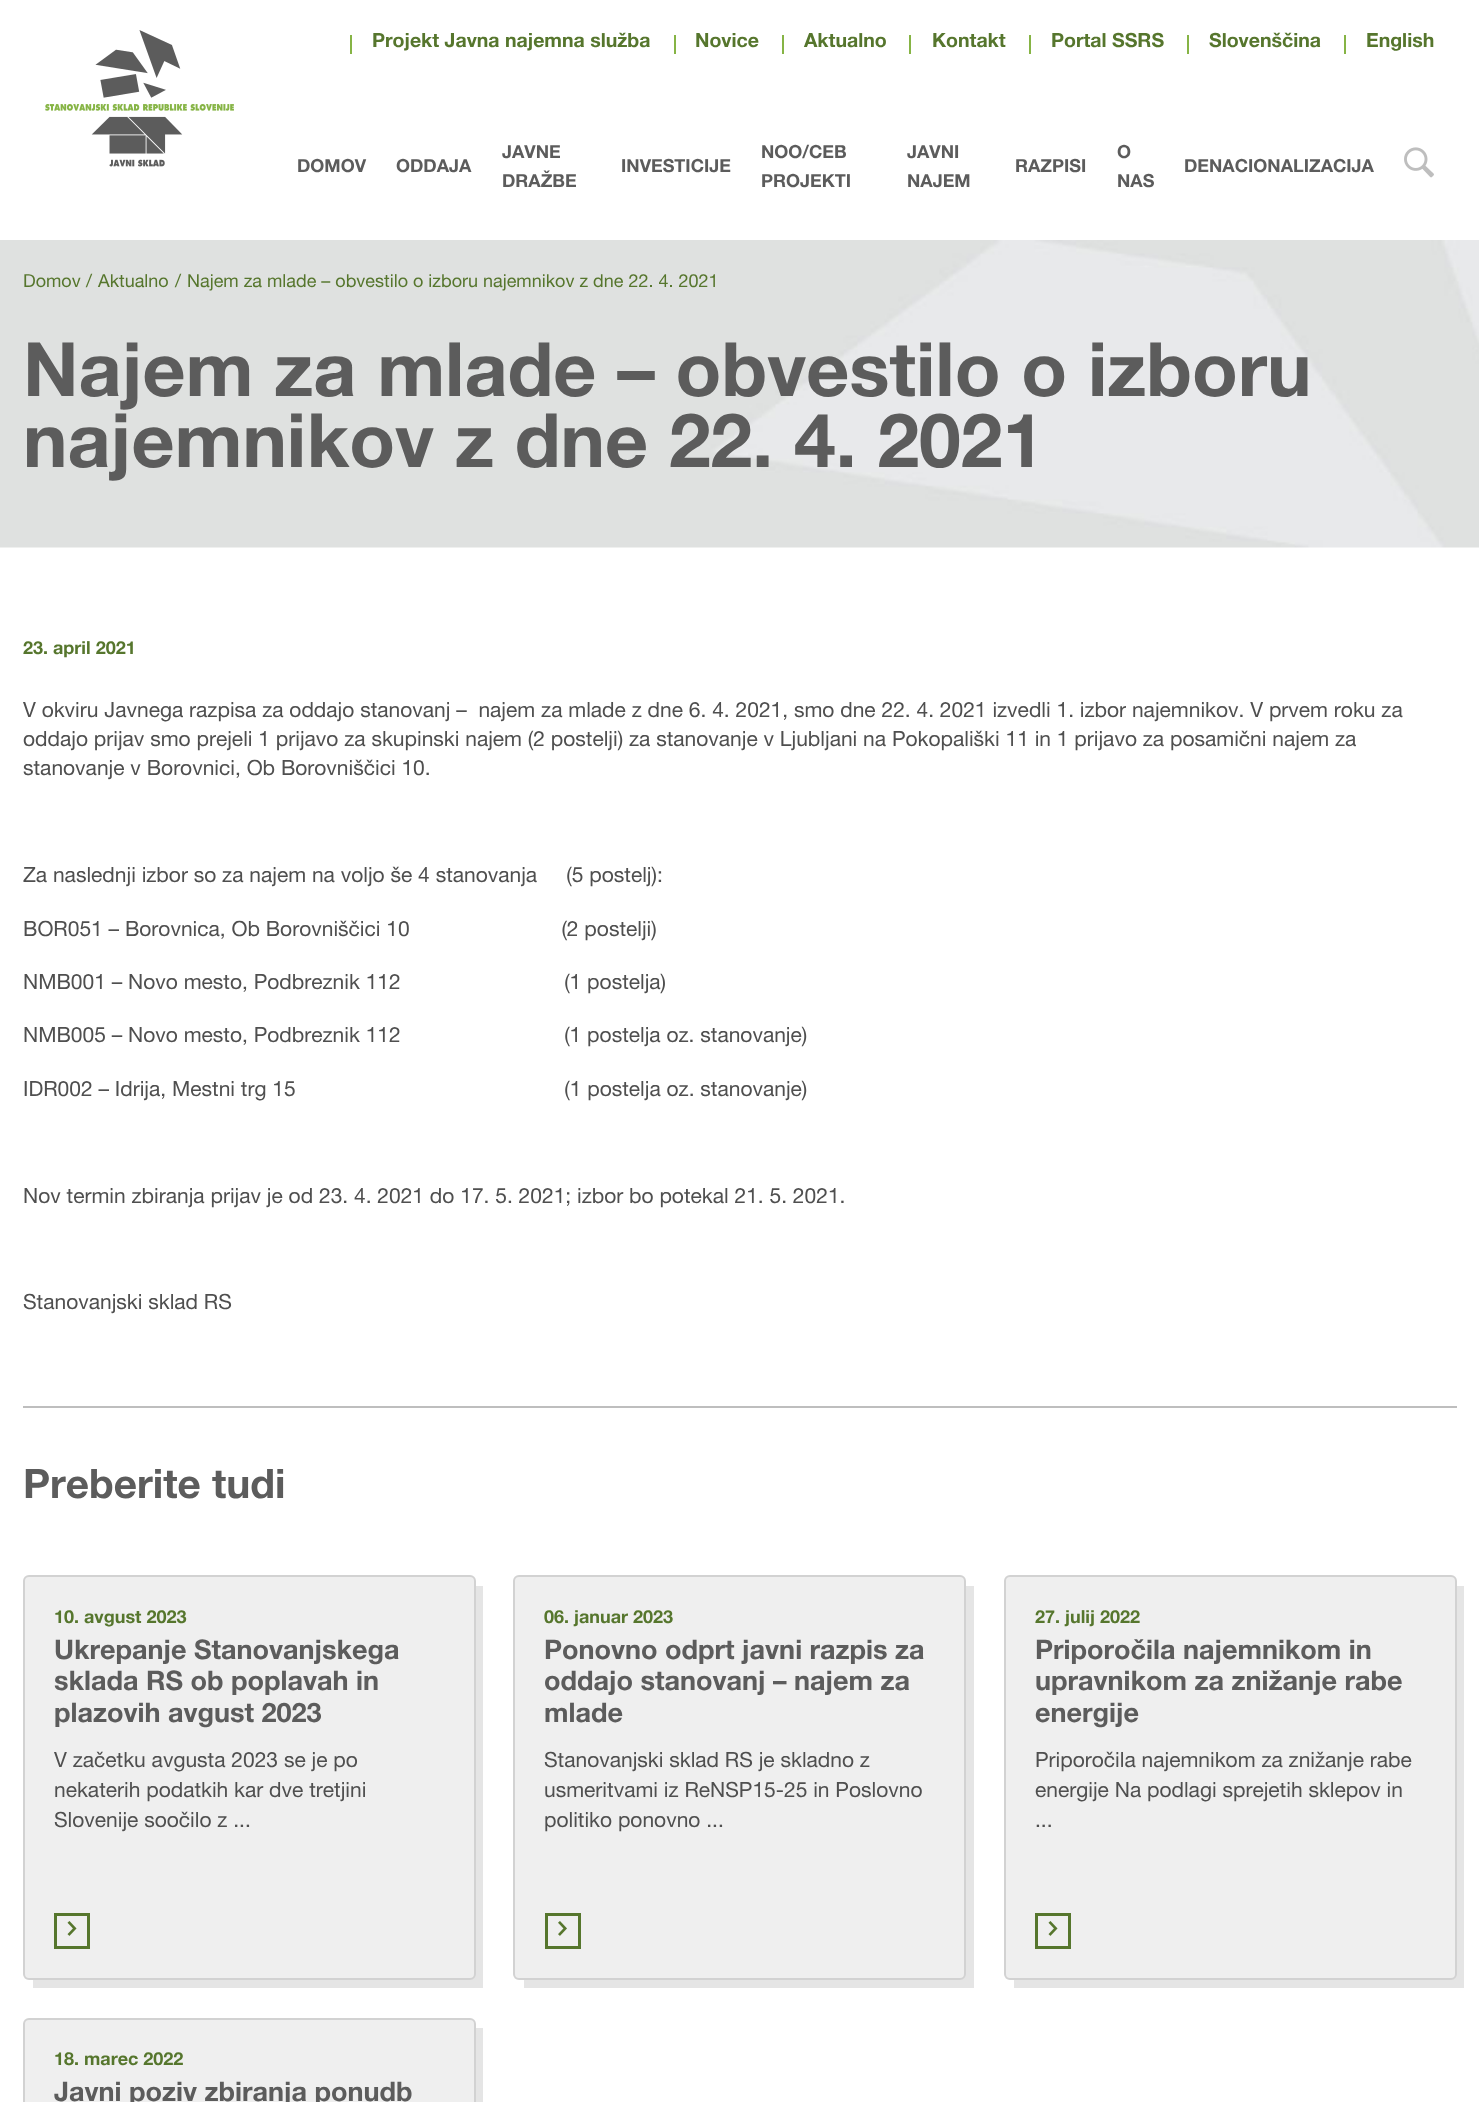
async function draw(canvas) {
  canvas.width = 1479
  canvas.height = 2102
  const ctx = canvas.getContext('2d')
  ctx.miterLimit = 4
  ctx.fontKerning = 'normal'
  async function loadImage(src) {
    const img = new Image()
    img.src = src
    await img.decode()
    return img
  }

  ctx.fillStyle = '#fff'
  ctx.fillRect(0, 0, 1479, 2102)
  ctx.drawImage(await loadImage('image0.png'), 45, 30, 189, 137)
  ctx.fillStyle = '#86b445'
  ctx.fillRect(350, 35, 2, 19)
  ctx.font = 'bold 19.5px Helvetica Neue'
  ctx.fillStyle = '#56762d'
  ctx.fillText('Projekt Javna najemna služba', 372, 47)
  ctx.fillStyle = '#86b445'
  ctx.fillRect(674, 35, 2, 19)
  ctx.fillStyle = '#56762d'
  ctx.fillText('Novice', 695, 47)
  ctx.fillStyle = '#86b445'
  ctx.fillRect(782, 35, 2, 19)
  ctx.fillStyle = '#56762d'
  ctx.fillText('Aktualno', 804, 47)
  ctx.fillStyle = '#86b445'
  ctx.fillRect(909, 35, 2, 19)
  ctx.fillStyle = '#56762d'
  ctx.fillText('Kontakt', 932, 47)
  ctx.fillStyle = '#86b445'
  ctx.fillRect(1029, 35, 2, 19)
  ctx.fillStyle = '#56762d'
  ctx.fillText('Portal SSRS', 1051, 47)
  ctx.fillStyle = '#86b445'
  ctx.fillRect(1187, 35, 2, 19)
  ctx.fillStyle = '#56762d'
  ctx.fillText('Slovenščina', 1209, 47)
  ctx.fillStyle = '#86b445'
  ctx.fillRect(1344, 35, 2, 19)
  ctx.fillStyle = '#56762d'
  ctx.fillText('English', 1366, 47)
  ctx.font = 'bold 18px Helvetica Neue'
  ctx.fillStyle = '#5c5c5c'
  ctx.fillText('DOMOV', 297, 172)
  ctx.fillText('ODDAJA', 396, 172)
  ctx.fillText('JAVNE', 502, 158)
  ctx.fillText('DRAŽBE', 502, 187)
  ctx.fillText('INVESTICIJE', 621, 172)
  ctx.fillText('NOO/CEB', 761, 158)
  ctx.fillText('PROJEKTI', 761, 187)
  ctx.fillText('JAVNI', 907, 158)
  ctx.fillText('NAJEM', 907, 187)
  ctx.fillText('RAZPISI', 1015, 172)
  ctx.fillText('O', 1117, 158)
  ctx.fillText('NAS', 1117, 187)
  ctx.fillText('DENACIONALIZACIJA', 1184, 172)
  ctx.drawImage(await loadImage('image1.png'), 1404, 147, 30, 31)
  ctx.drawImage(await loadImage('image2.png'), 0, 240, 1479, 308)
  ctx.font = '18px Helvetica Neue'
  ctx.fillStyle = '#56762d'
  ctx.fillText('Domov', 23, 287)
  ctx.fillText('/', 86, 287)
  ctx.fillText('Aktualno', 98, 287)
  ctx.fillText('/', 175, 287)
  ctx.fillText('Najem za mlade – obvestilo o izboru najemnikov z dne 22. 4. 2021', 187, 287)
  ctx.font = 'bold 75px Helvetica Neue'
  ctx.fillStyle = '#5c5c5c'
  ctx.fillText('Najem za mlade – obvestilo o izboru', 23, 396)
  ctx.fillText('najemnikov z dne 22. 4. 2021', 23, 467)
  ctx.font = 'bold 18px Helvetica Neue'
  ctx.fillStyle = '#56762d'
  ctx.fillText('23. april 2021', 23, 654)
  ctx.font = '21px Helvetica Neue'
  ctx.fillStyle = '#4f4f4f'
  ctx.fillText('V okviru Javnega razpisa za oddajo stanovanj –  najem za mlade z dne 6. 4. 2021, smo dne 22. 4. 2021 izvedli 1. izbor najemnikov. V prvem roku za', 23, 717)
  ctx.fillText('oddajo prijav smo prejeli 1 prijavo za skupinski najem (2 postelji) za stanovanje v Ljubljani na Pokopališki 11 in 1 prijavo za posamični najem za', 23, 746)
  ctx.fillText('stanovanje v Borovnici, Ob Borovniščici 10.', 23, 775)
  ctx.fillText('Za naslednji izbor so za najem na voljo še 4 stanovanja     (5 postelj):', 23, 882)
  ctx.fillText('BOR051 – Borovnica, Ob Borovniščici 10                          (2 postelji)', 23, 936)
  ctx.fillText('NMB001 – Novo mesto, Podbreznik 112                            (1 postelja)', 23, 989)
  ctx.fillText('NMB005 – Novo mesto, Podbreznik 112                            (1 postelja oz. stanovanje)', 23, 1042)
  ctx.fillText('IDR002 – Idrija, Mestni trg 15                                              (1 postelja oz. stanovanje)', 23, 1096)
  ctx.fillText('Nov termin zbiranja prijav je od 23. 4. 2021 do 17. 5. 2021; izbor bo potekal 21. 5. 2021.', 23, 1203)
  ctx.fillText('Stanovanjski sklad RS', 23, 1309)
  ctx.fillStyle = '#bebebe'
  ctx.fillRect(23, 1406, 1434, 2)
  ctx.font = 'bold 40.5px Helvetica Neue'
  ctx.fillStyle = '#5c5c5c'
  ctx.fillText('Preberite tudi', 23, 1498)
  ctx.fillStyle = '#e5e5e5'
  ctx.fillRect(33, 1586, 450, 402)
  ctx.fillStyle = '#efefef'
  ctx.beginPath()
  ctx.roundRect(23, 1575, 453, 405, 6)
  ctx.fill()
  ctx.beginPath()
  ctx.roundRect(24, 1576, 451, 403, 5)
  ctx.strokeStyle = '#0000001f'
  ctx.lineWidth = 2
  ctx.stroke()
  ctx.font = 'bold 18px Helvetica Neue'
  ctx.fillStyle = '#56762d'
  ctx.fillText('10. avgust 2023', 54, 1623)
  ctx.font = 'bold 27px Helvetica Neue'
  ctx.fillStyle = '#5c5c5c'
  ctx.fillText('Ukrepanje Stanovanjskega', 54, 1659)
  ctx.fillText('sklada RS ob poplavah in', 54, 1690)
  ctx.fillText('plazovih avgust 2023', 54, 1722)
  ctx.font = '21px Helvetica Neue'
  ctx.fillStyle = '#4f4f4f'
  ctx.fillText('V začetku avgusta 2023 se je po', 54, 1767)
  ctx.fillText('nekaterih podatkih kar dve tretjini', 54, 1797)
  ctx.fillText('Slovenije soočilo z ...', 54, 1827)
  ctx.strokeStyle = '#56762d'
  ctx.lineWidth = 3
  ctx.strokeRect(55.5, 1914.5, 33, 33)
  ctx.drawImage(await loadImage('image3.png'), 67, 1921, 10, 15)
  ctx.fillStyle = '#e5e5e5'
  ctx.fillRect(524, 1586, 450, 402)
  ctx.fillStyle = '#efefef'
  ctx.beginPath()
  ctx.roundRect(513, 1575, 453, 405, 6)
  ctx.fill()
  ctx.beginPath()
  ctx.roundRect(514, 1576, 451, 403, 5)
  ctx.strokeStyle = '#0000001f'
  ctx.lineWidth = 2
  ctx.stroke()
  ctx.font = 'bold 18px Helvetica Neue'
  ctx.fillStyle = '#56762d'
  ctx.fillText('06. januar 2023', 544, 1623)
  ctx.font = 'bold 27px Helvetica Neue'
  ctx.fillStyle = '#5c5c5c'
  ctx.fillText('Ponovno odprt javni razpis za', 544, 1659)
  ctx.fillText('oddajo stanovanj – najem za', 544, 1690)
  ctx.fillText('mlade', 544, 1722)
  ctx.font = '21px Helvetica Neue'
  ctx.fillStyle = '#4f4f4f'
  ctx.fillText('Stanovanjski sklad RS je skladno z', 544, 1767)
  ctx.fillText('usmeritvami iz ReNSP15-25 in Poslovno', 544, 1797)
  ctx.fillText('politiko ponovno ...', 544, 1827)
  ctx.strokeStyle = '#56762d'
  ctx.lineWidth = 3
  ctx.strokeRect(546.5, 1914.5, 33, 33)
  ctx.drawImage(await loadImage('image4.png'), 558, 1921, 9, 15)
  ctx.fillStyle = '#e5e5e5'
  ctx.fillRect(1014, 1586, 450, 402)
  ctx.fillStyle = '#efefef'
  ctx.beginPath()
  ctx.roundRect(1004, 1575, 453, 405, 6)
  ctx.fill()
  ctx.beginPath()
  ctx.roundRect(1005, 1576, 451, 403, 5)
  ctx.strokeStyle = '#0000001f'
  ctx.lineWidth = 2
  ctx.stroke()
  ctx.font = 'bold 18px Helvetica Neue'
  ctx.fillStyle = '#56762d'
  ctx.fillText('27. julij 2022', 1035, 1623)
  ctx.font = 'bold 27px Helvetica Neue'
  ctx.fillStyle = '#5c5c5c'
  ctx.fillText('Priporočila najemnikom in', 1035, 1659)
  ctx.fillText('upravnikom za znižanje rabe', 1035, 1690)
  ctx.fillText('energije', 1035, 1722)
  ctx.font = '21px Helvetica Neue'
  ctx.fillStyle = '#4f4f4f'
  ctx.fillText('Priporočila najemnikom za znižanje rabe', 1035, 1767)
  ctx.fillText('energije Na podlagi sprejetih sklepov in', 1035, 1797)
  ctx.fillText('...', 1035, 1827)
  ctx.strokeStyle = '#56762d'
  ctx.lineWidth = 3
  ctx.strokeRect(1036.5, 1914.5, 33, 33)
  ctx.drawImage(await loadImage('image3.png'), 1048, 1921, 10, 15)
  ctx.fillStyle = '#efefef'
  ctx.beginPath()
  ctx.roundRect(23, 2018, 453, 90, 6)
  ctx.fill()
  ctx.beginPath()
  ctx.roundRect(24, 2019, 451, 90, 5)
  ctx.strokeStyle = '#0000001f'
  ctx.lineWidth = 2
  ctx.stroke()
  ctx.font = 'bold 18px Helvetica Neue'
  ctx.fillStyle = '#56762d'
  ctx.fillText('18. marec 2022', 54, 2065)
  ctx.font = 'bold 27px Helvetica Neue'
  ctx.fillStyle = '#5c5c5c'
  ctx.fillText('Javni poziv zbiranja ponudb', 54, 2101)
  ctx.fillStyle = '#e5e5e5'
  ctx.fillRect(476, 2028, 7, 74)
}

draw(document.querySelector('canvas'))
